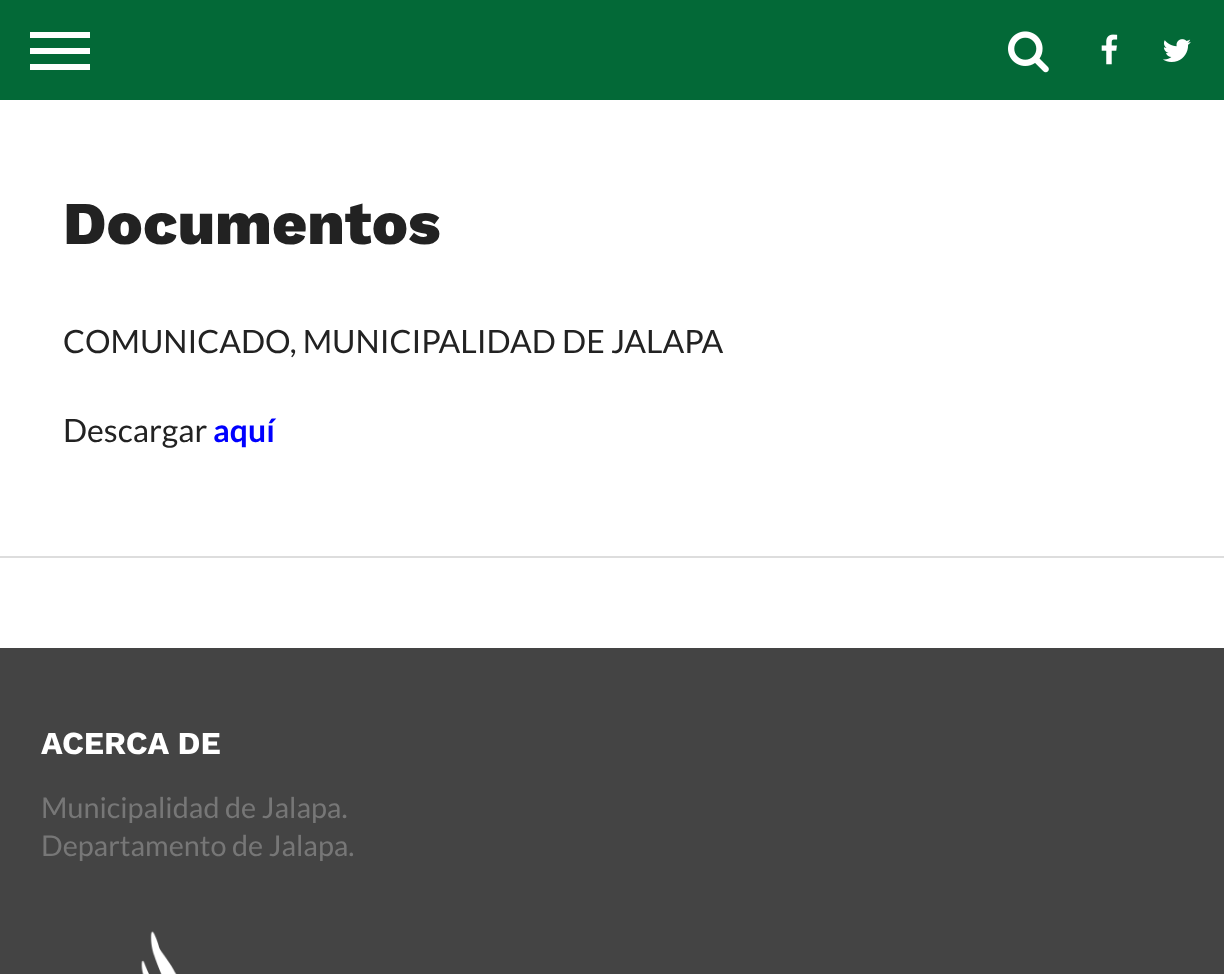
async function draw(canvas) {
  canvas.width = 1224
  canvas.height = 974
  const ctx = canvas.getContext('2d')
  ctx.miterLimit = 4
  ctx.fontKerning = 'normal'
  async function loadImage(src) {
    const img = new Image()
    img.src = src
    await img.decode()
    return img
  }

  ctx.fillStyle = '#fff'
  ctx.fillRect(0, 0, 1224, 974)
  ctx.fillStyle = '#036937'
  ctx.fillRect(0, 0, 1224, 100)
  ctx.fillStyle = '#fff'
  ctx.fillRect(30, 32, 60, 6)
  ctx.fillRect(30, 48, 60, 6)
  ctx.fillRect(30, 64, 60, 6)
  ctx.drawImage(await loadImage('image0.png'), 1008, 31, 41, 42)
  ctx.drawImage(await loadImage('image1.png'), 1101, 34, 17, 31)
  ctx.drawImage(await loadImage('image2.png'), 1163, 39, 28, 23)
  ctx.fillStyle = '#ddd'
  ctx.fillRect(0, 556, 1224, 2)
  ctx.font = '800 60.75px Work Sans'
  ctx.fillStyle = '#222'
  ctx.fillText('Documentos', 63, 244)
  ctx.font = '32px Lato'
  ctx.fillText('COMUNICADO, MUNICIPALIDAD DE JALAPA', 63, 353)
  ctx.fillText('Descargar', 63, 442)
  ctx.font = 'bold 32px Lato'
  ctx.fillStyle = '#00f'
  ctx.fillText('aquí', 213, 442)
  ctx.fillStyle = '#444'
  ctx.fillRect(0, 648, 1224, 326)
  ctx.font = 'bold 32px Work Sans'
  ctx.fillStyle = '#fff'
  ctx.fillText('ACERCA DE', 41, 754)
  ctx.font = '28.75px Lato'
  ctx.fillStyle = '#777'
  ctx.fillText('Municipalidad de Jalapa.', 41, 818)
  ctx.fillText('Departamento de Jalapa.', 41, 856)
  ctx.drawImage(await loadImage('image3.png'), 141, 931, 36, 43)
}

draw(document.querySelector('canvas'))
